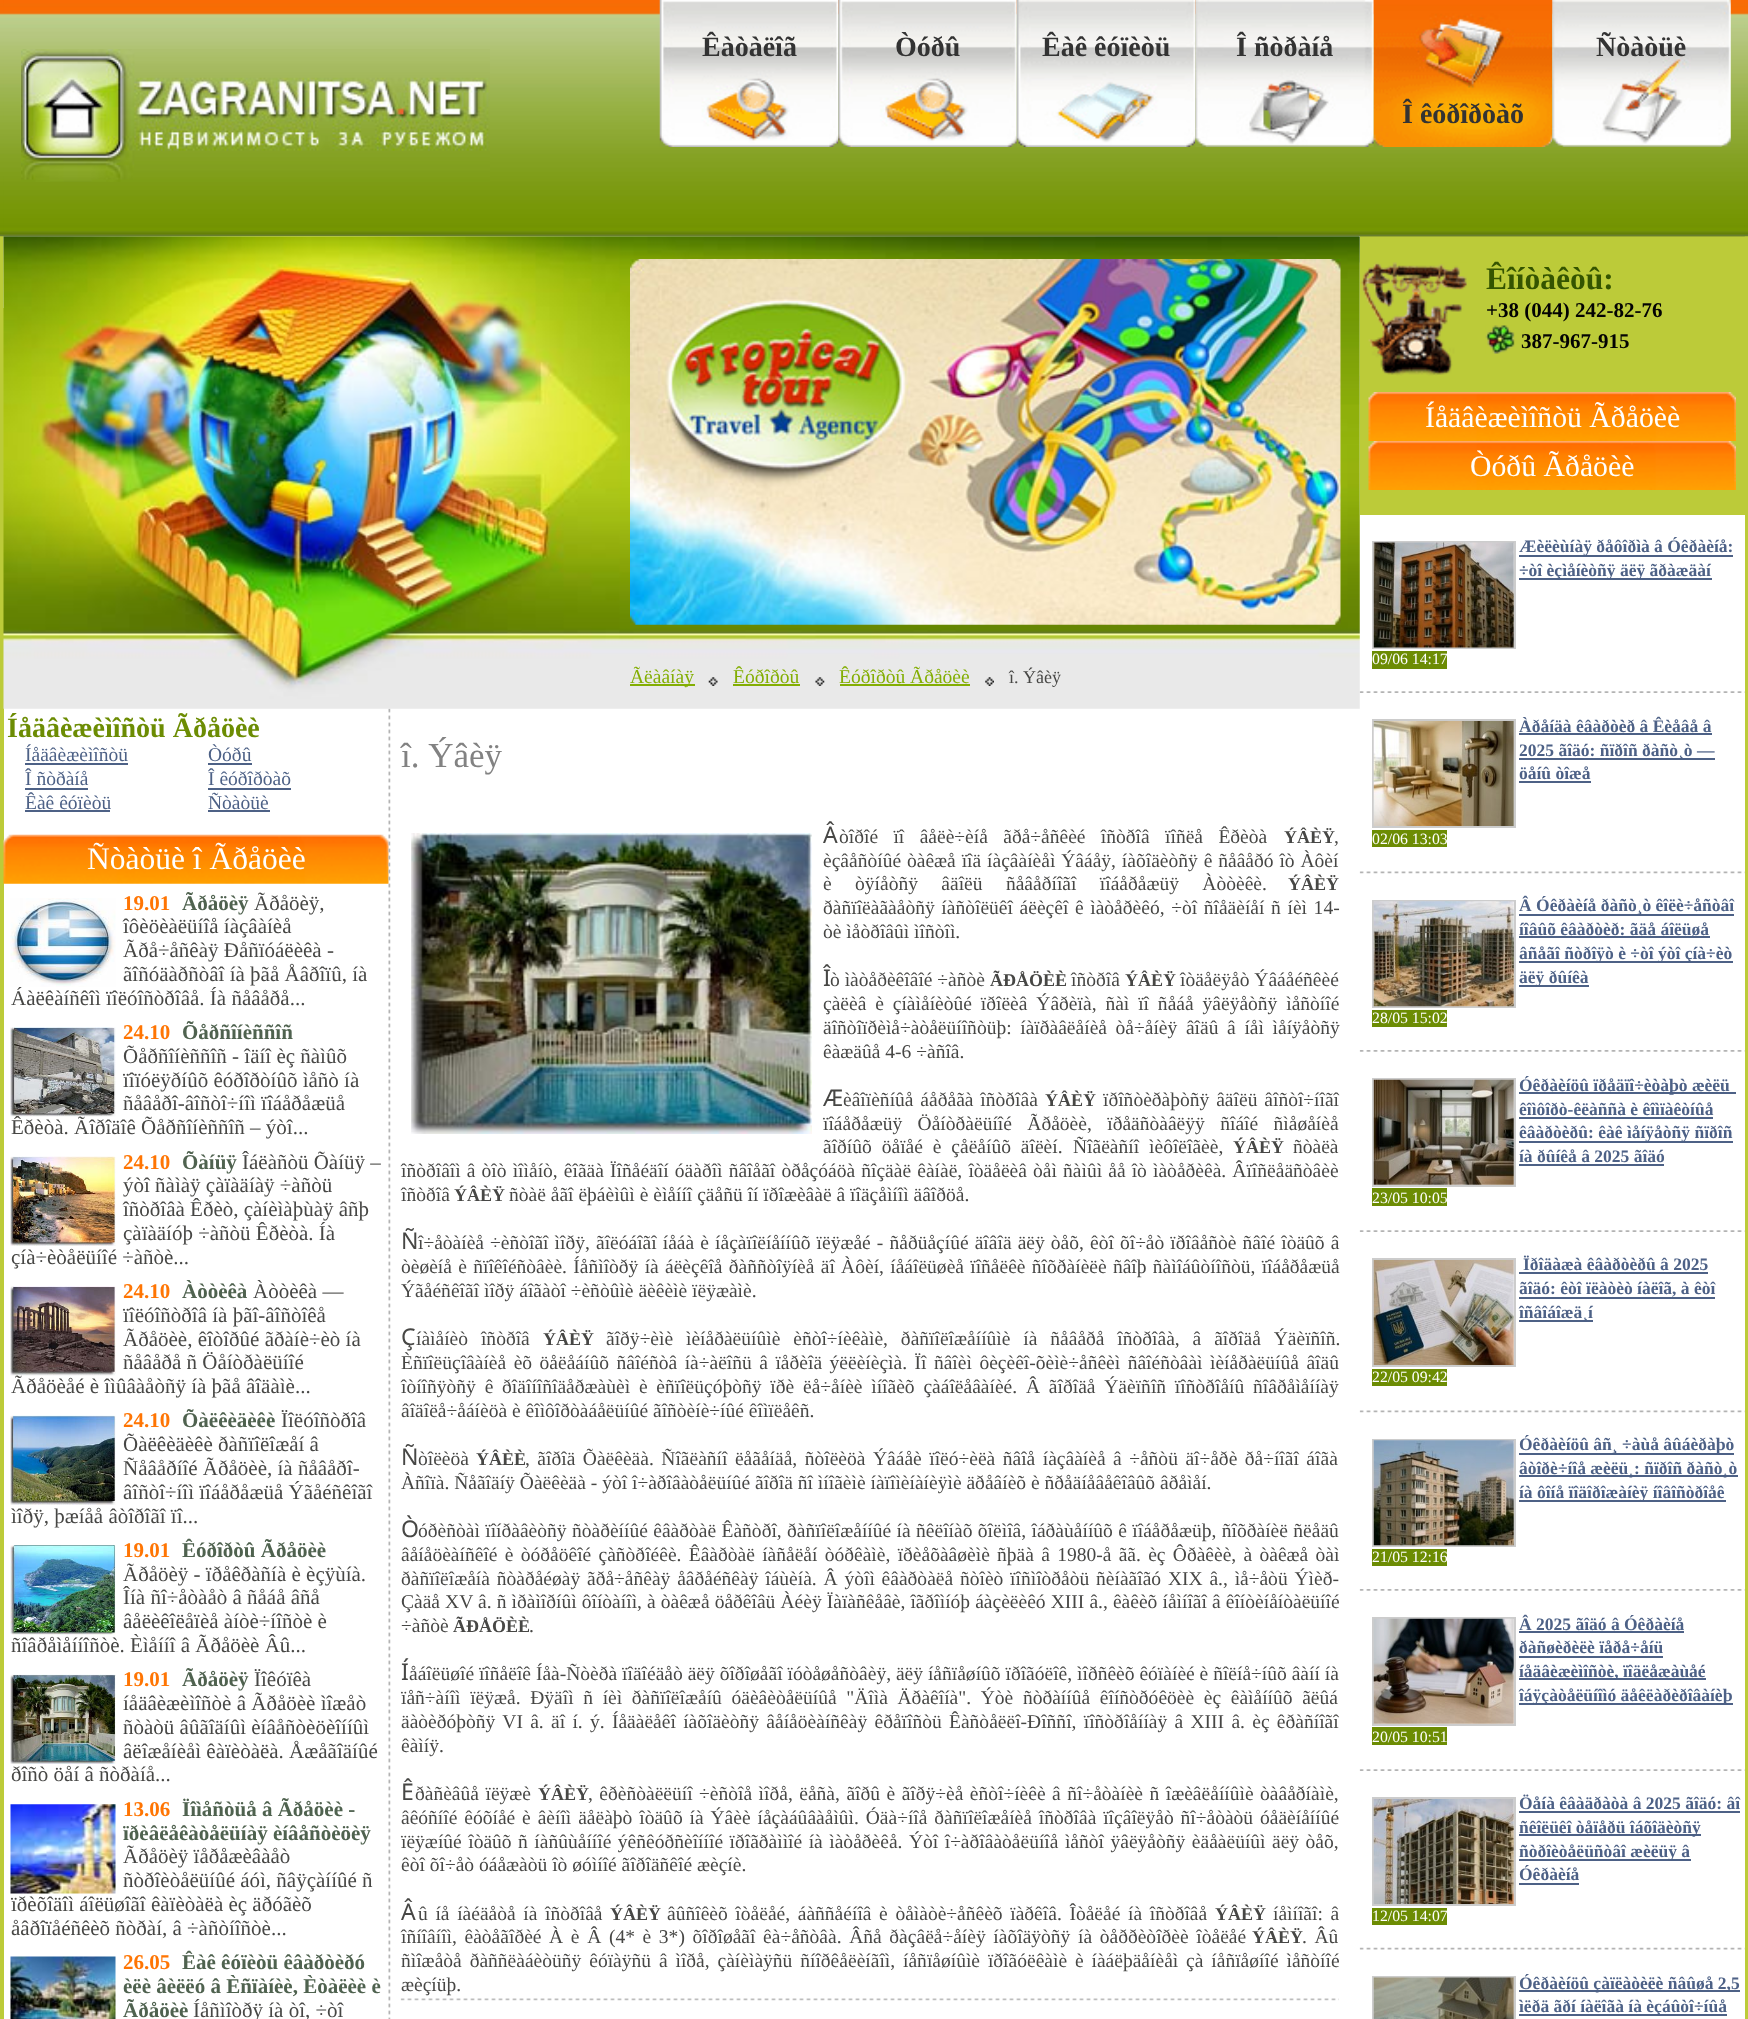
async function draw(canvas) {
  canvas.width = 1748
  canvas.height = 2019
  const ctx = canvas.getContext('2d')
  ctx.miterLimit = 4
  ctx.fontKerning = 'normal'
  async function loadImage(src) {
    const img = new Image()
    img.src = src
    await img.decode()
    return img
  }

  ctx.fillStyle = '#bccb39'
  ctx.fillRect(0, 0, 1748, 2019)
  ctx.drawImage(await loadImage('image0.png'), 0, 0, 1748, 237)
  ctx.drawImage(await loadImage('image1.png'), 3, 0, 1742, 237)
  ctx.drawImage(await loadImage('image2.png'), 21, 49, 469, 133)
  ctx.drawImage(await loadImage('image3.png'), 659, 0, 180, 147)
  ctx.font = 'bold 28px Liberation Serif'
  ctx.fillStyle = '#333'
  ctx.fillText('Êàòàëîã', 702, 56)
  ctx.drawImage(await loadImage('image4.png'), 838, 0, 179, 147)
  ctx.fillText('Òóðû', 895, 56)
  ctx.drawImage(await loadImage('image5.png'), 1016, 0, 180, 147)
  ctx.fillText('Êàê êóïèòü', 1042, 56)
  ctx.drawImage(await loadImage('image6.png'), 1195, 0, 179, 147)
  ctx.fillText('Î ñòðàíå', 1236, 56)
  ctx.drawImage(await loadImage('image8.png'), 1373, 0, 180, 147)
  ctx.drawImage(await loadImage('image7.png'), 1552, 0, 179, 147)
  ctx.fillText('Ñòàòüè', 1596, 56)
  ctx.fillText('Î êóðîðòàõ', 1402, 123)
  ctx.fillStyle = '#fff'
  ctx.fillRect(4, 236, 1356, 1783)
  ctx.drawImage(await loadImage('image11.png'), 3, 236, 1357, 72)
  ctx.drawImage(await loadImage('image9.png'), 3, 236, 1357, 473)
  ctx.drawImage(await loadImage('image10.png'), 630, 259, 711, 366)
  ctx.fillStyle = '#6c8c03'
  ctx.fillText('Íåäâèæèìîñòü Ãðåöèè', 7, 737)
  ctx.font = '19.55px Liberation Serif'
  ctx.fillStyle = '#4d6186'
  ctx.fillText('Íåäâèæèìîñòü', 25, 761)
  ctx.fillRect(25, 763, 103, 2)
  ctx.fillText('Î ñòðàíå', 25, 785)
  ctx.fillRect(25, 788, 63, 2)
  ctx.fillText('Êàê êóïèòü', 25, 809)
  ctx.fillRect(25, 810, 85, 2)
  ctx.fillText('Òóðû', 208, 761)
  ctx.fillRect(208, 763, 44, 2)
  ctx.fillText('Î êóðîðòàõ', 208, 785)
  ctx.fillRect(208, 788, 83, 2)
  ctx.fillText('Ñòàòüè', 208, 809)
  ctx.fillRect(208, 810, 62, 2)
  ctx.drawImage(await loadImage('image12.png'), 3, 834, 386, 50)
  ctx.font = '31.5px Liberation Serif'
  ctx.fillStyle = '#fff'
  ctx.fillText('Ñòàòüè î Ãðåöèè', 87, 869)
  ctx.drawImage(await loadImage('image13.png'), 10, 898, 106, 89)
  ctx.font = 'bold 21px Liberation Serif'
  ctx.fillStyle = '#ff7503'
  ctx.fillText('19.01', 123, 910)
  ctx.fillStyle = '#4f624f'
  ctx.fillText('Ãðåöèÿ', 182, 910)
  ctx.font = '21px Liberation Serif'
  ctx.fillStyle = '#474745'
  ctx.fillText('Ãðåöèÿ,', 254, 910)
  ctx.fillText('îôèöèàëüíîå íàçâàíèå', 123, 933)
  ctx.fillText('Ãðå÷åñêàÿ Ðåñïóáëèêà -', 123, 957)
  ctx.fillText('ãîñóäàðñòâî íà þãå Åâðîïû, íà', 123, 981)
  ctx.fillText('Áàëêàíñêîì ïîëóîñòðîâå. Íà ñåâåðå...', 11, 1005)
  ctx.drawImage(await loadImage('image14.png'), 10, 1027, 106, 90)
  ctx.font = 'bold 21px Liberation Serif'
  ctx.fillStyle = '#ff7503'
  ctx.fillText('24.10', 123, 1039)
  ctx.fillStyle = '#4f624f'
  ctx.fillText('Õåðñîíèññîñ', 182, 1039)
  ctx.font = '21px Liberation Serif'
  ctx.fillStyle = '#474745'
  ctx.fillText('Õåðñîíèññîñ - îäíî èç ñàìûõ', 123, 1063)
  ctx.fillText('ïîïóëÿðíûõ êóðîðòíûõ ìåñò íà', 123, 1087)
  ctx.fillText('ñåâåðî-âîñòî÷íîì ïîáåðåæüå', 123, 1110)
  ctx.fillText('Êðèòà. Ãîðîäîê Õåðñîíèññîñ – ýòî...', 11, 1134)
  ctx.drawImage(await loadImage('image15.png'), 10, 1156, 106, 90)
  ctx.font = 'bold 21px Liberation Serif'
  ctx.fillStyle = '#ff7503'
  ctx.fillText('24.10', 123, 1169)
  ctx.fillStyle = '#4f624f'
  ctx.fillText('Õàíüÿ', 182, 1169)
  ctx.font = '21px Liberation Serif'
  ctx.fillStyle = '#474745'
  ctx.fillText('Îáëàñòü Õàíüÿ –', 242, 1169)
  ctx.fillText('ýòî ñàìàÿ çàïàäíàÿ ÷àñòü', 123, 1192)
  ctx.fillText('îñòðîâà Êðèò, çàíèìàþùàÿ âñþ', 123, 1216)
  ctx.fillText('çàïàäíóþ ÷àñòü Êðèòà. Íà', 123, 1240)
  ctx.fillText('çíà÷èòåëüíîé ÷àñòè...', 11, 1264)
  ctx.drawImage(await loadImage('image16.png'), 10, 1286, 106, 90)
  ctx.font = 'bold 21px Liberation Serif'
  ctx.fillStyle = '#ff7503'
  ctx.fillText('24.10', 123, 1298)
  ctx.fillStyle = '#4f624f'
  ctx.fillText('Àòòèêà', 182, 1298)
  ctx.font = '21px Liberation Serif'
  ctx.fillStyle = '#474745'
  ctx.fillText('Àòòèêà —', 253, 1298)
  ctx.fillText('ïîëóîñòðîâ íà þãî-âîñòîêå', 123, 1322)
  ctx.fillText('Ãðåöèè, êîòîðûé ãðàíè÷èò íà', 123, 1346)
  ctx.fillText('ñåâåðå ñ Öåíòðàëüíîé', 123, 1369)
  ctx.fillText('Ãðåöèåé è îìûâàåòñÿ íà þãå âîäàìè...', 11, 1393)
  ctx.drawImage(await loadImage('image17.png'), 10, 1415, 106, 90)
  ctx.font = 'bold 21px Liberation Serif'
  ctx.fillStyle = '#ff7503'
  ctx.fillText('24.10', 123, 1427)
  ctx.fillStyle = '#4f624f'
  ctx.fillText('Õàëêèäèêè', 182, 1427)
  ctx.font = '21px Liberation Serif'
  ctx.fillStyle = '#474745'
  ctx.fillText('Ïîëóîñòðîâ', 281, 1427)
  ctx.fillText('Õàëêèäèêè ðàñïîëîæåí â', 123, 1451)
  ctx.fillText('Ñåâåðíîé Ãðåöèè, íà ñåâåðî-', 123, 1475)
  ctx.fillText('âîñòî÷íîì ïîáåðåæüå Ýãåéñêîãî', 123, 1499)
  ctx.fillText('ìîðÿ, þæíåå âòîðîãî ïî...', 11, 1523)
  ctx.drawImage(await loadImage('image18.png'), 10, 1545, 106, 90)
  ctx.font = 'bold 21px Liberation Serif'
  ctx.fillStyle = '#ff7503'
  ctx.fillText('19.01', 123, 1557)
  ctx.fillStyle = '#4f624f'
  ctx.fillText('Êóðîðòû Ãðåöèè', 182, 1557)
  ctx.font = '21px Liberation Serif'
  ctx.fillStyle = '#474745'
  ctx.fillText('Ãðåöèÿ - ïðåêðàñíà è èçÿùíà.', 123, 1581)
  ctx.fillText('Îíà ñî÷åòàåò â ñåáå âñå', 123, 1604)
  ctx.fillText('âåëèêîëåïèå àíòè÷íîñòè è', 123, 1628)
  ctx.fillText('ñîâðåìåííîñòè. Èìåííî â Ãðåöèè Âû...', 11, 1652)
  ctx.drawImage(await loadImage('image19.png'), 10, 1674, 106, 90)
  ctx.font = 'bold 21px Liberation Serif'
  ctx.fillStyle = '#ff7503'
  ctx.fillText('19.01', 123, 1686)
  ctx.fillStyle = '#4f624f'
  ctx.fillText('Ãðåöèÿ', 182, 1686)
  ctx.font = '21px Liberation Serif'
  ctx.fillStyle = '#474745'
  ctx.fillText('Ïîêóïêà', 254, 1686)
  ctx.fillText('íåäâèæèìîñòè â Ãðåöèè ìîæåò', 123, 1710)
  ctx.fillText('ñòàòü âûãîäíûì èíâåñòèöèîííûì', 123, 1734)
  ctx.fillText('âëîæåíèåì êàïèòàëà. Åæåãîäíûé', 123, 1758)
  ctx.fillText('ðîñò öåí â ñòðàíå...', 11, 1781)
  ctx.drawImage(await loadImage('image20.png'), 10, 1804, 106, 90)
  ctx.font = 'bold 21px Liberation Serif'
  ctx.fillStyle = '#ff7503'
  ctx.fillText('13.06', 123, 1816)
  ctx.fillStyle = '#4f624f'
  ctx.fillText('Ïîìåñòüå â Ãðåöèè -', 182, 1816)
  ctx.fillText('ïðèâëåêàòåëüíàÿ èíâåñòèöèÿ', 123, 1840)
  ctx.font = '21px Liberation Serif'
  ctx.fillStyle = '#474745'
  ctx.fillText('Ãðåöèÿ ïåðåæèâàåò', 123, 1863)
  ctx.fillText('ñòðîèòåëüíûé áóì, ñâÿçàííûé ñ', 123, 1887)
  ctx.fillText('ïðèõîäîì áîëüøîãî êàïèòàëà èç äðóãèõ', 11, 1911)
  ctx.fillText('åâðîïåéñêèõ ñòðàí, â ÷àñòíîñòè...', 11, 1935)
  ctx.drawImage(await loadImage('image21.png'), 10, 1956, 106, 63)
  ctx.font = 'bold 21px Liberation Serif'
  ctx.fillStyle = '#ff7503'
  ctx.fillText('26.05', 123, 1969)
  ctx.fillStyle = '#4f624f'
  ctx.fillText('Êàê êóïèòü êâàðòèðó', 182, 1969)
  ctx.fillText('èëè âèëëó â Èñïàíèè, Èòàëèè è', 123, 1993)
  ctx.fillText('Ãðåöèè', 123, 2017)
  ctx.font = '21px Liberation Serif'
  ctx.fillStyle = '#474745'
  ctx.fillText('Íåñìîòðÿ íà òî, ÷òî', 193, 2017)
  ctx.drawImage(await loadImage('image22.png'), 388, 708, 3, 1311)
  ctx.fillStyle = '#83ae03'
  ctx.fillRect(630, 684, 65, 2)
  ctx.font = '19.55px Liberation Serif'
  ctx.fillText('Ãëàâíàÿ', 630, 683)
  ctx.drawImage(await loadImage('image23.png'), 708, 677, 10, 9)
  ctx.fillText('Êóðîðòû', 733, 683)
  ctx.fillRect(733, 684, 67, 2)
  ctx.drawImage(await loadImage('image24.png'), 815, 677, 10, 9)
  ctx.fillText('Êóðîðòû Ãðåöèè', 839, 683)
  ctx.fillRect(840, 684, 130, 2)
  ctx.drawImage(await loadImage('image25.png'), 985, 677, 9, 9)
  ctx.font = '18px Liberation Serif'
  ctx.fillStyle = '#474745'
  ctx.fillText('î. Ýâèÿ', 1009, 683)
  ctx.font = '35px Liberation Serif'
  ctx.fillStyle = '#828282'
  ctx.fillText('î. Ýâèÿ', 401, 767)
  ctx.drawImage(await loadImage('image26.png'), 411, 833, 401, 301)
  ctx.font = '23px Noto Sans'
  ctx.fillStyle = '#474745'
  ctx.fillText('Â', 823, 843)
  ctx.wordSpacing = '10.5px'
  ctx.font = '19.55px Liberation Serif'
  ctx.fillText('òîðîé ïî âåëè÷èíå ãðå÷åñêèé îñòðîâ ïîñëå Êðèòà', 839, 843)
  ctx.wordSpacing = '0px'
  ctx.font = 'bold 18px Liberation Serif'
  ctx.fillText('ÝÂÈŸ', 1284, 843)
  ctx.font = '19.55px Liberation Serif'
  ctx.fillText(',', 1334, 843)
  ctx.wordSpacing = '1px'
  ctx.fillText('èçâåñòíûé òàêæå ïîä íàçâàíèåì Ýâáåÿ, íàõîäèòñÿ ê ñåâåðó îò Àôèí', 823, 867)
  ctx.wordSpacing = '18.5px'
  ctx.fillText('è òÿíåòñÿ âäîëü ñåâåðíîãî ïîáåðåæüÿ Àòòèêè.', 823, 890)
  ctx.wordSpacing = '0px'
  ctx.font = 'bold 18px Liberation Serif'
  ctx.fillText('ÝÂÈŸ', 1288, 890)
  ctx.wordSpacing = '1.75px'
  ctx.font = '19.55px Liberation Serif'
  ctx.fillText('ðàñïîëàãàåòñÿ íàñòîëüêî áëèçêî ê ìàòåðèêó, ÷òî ñîåäèíåí ñ íèì 14-', 823, 914)
  ctx.wordSpacing = '0px'
  ctx.fillText('òè ìåòðîâûì ìîñòîì.', 823, 938)
  ctx.font = '23px Noto Sans'
  ctx.fillText('Î', 823, 986)
  ctx.font = '19.55px Liberation Serif'
  ctx.fillText('ò ìàòåðèêîâîé ÷àñòè', 830, 986)
  ctx.font = 'bold 18px Liberation Serif'
  ctx.fillText('ÃÐÅÖÈÈ', 990, 986)
  ctx.font = '19.55px Liberation Serif'
  ctx.fillText('îñòðîâ', 1071, 986)
  ctx.font = 'bold 18px Liberation Serif'
  ctx.fillText('ÝÂÈŸ', 1125, 986)
  ctx.font = '19.55px Liberation Serif'
  ctx.fillText('îòäåëÿåò Ýâáåéñêèé', 1180, 986)
  ctx.wordSpacing = '4px'
  ctx.fillText('çàëèâ è çíàìåíèòûé ïðîëèâ Ýâðèïà, ñàì ïî ñåáå ÿâëÿåòñÿ ìåñòíîé', 823, 1010)
  ctx.wordSpacing = '3.75px'
  ctx.fillText('äîñòîïðèìå÷àòåëüíîñòüþ: íàïðàâëåíèå òå÷åíèÿ âîäû â íåì ìåíÿåòñÿ', 823, 1034)
  ctx.wordSpacing = '0px'
  ctx.fillText('êàæäûå 4-6 ÷àñîâ.', 823, 1058)
  ctx.font = '23px Noto Sans'
  ctx.fillText('Æ', 823, 1106)
  ctx.wordSpacing = '2px'
  ctx.font = '19.55px Liberation Serif'
  ctx.fillText('èâîïèñíûå áåðåãà îñòðîâà', 843, 1106)
  ctx.wordSpacing = '0px'
  ctx.font = 'bold 18px Liberation Serif'
  ctx.fillText('ÝÂÈŸ', 1045, 1106)
  ctx.wordSpacing = '2px'
  ctx.font = '19.55px Liberation Serif'
  ctx.fillText('ïðîñòèðàþòñÿ âäîëü âîñòî÷íîãî', 1103, 1106)
  ctx.wordSpacing = '10.5px'
  ctx.fillText('ïîáåðåæüÿ Öåíòðàëüíîé Ãðåöèè, ïðåäñòàâëÿÿ ñîáîé ñìåøåíèå', 823, 1130)
  ctx.wordSpacing = '5px'
  ctx.fillText('ãîðíûõ öåïåé è çåëåíûõ äîëèí.', 823, 1153)
  ctx.fillText('Ñîãëàñíî ìèôîëîãèè,', 1073, 1153)
  ctx.wordSpacing = '0px'
  ctx.font = 'bold 18px Liberation Serif'
  ctx.fillText('ÝÂÈŸ', 1233, 1153)
  ctx.font = '19.55px Liberation Serif'
  ctx.fillText('ñòàëà', 1293, 1153)
  ctx.wordSpacing = '1.25px'
  ctx.fillText('îñòðîâîì â òîò ìîìåíò, êîãäà Ïîñåéäîí óäàðîì ñâîåãî òðåçóáöà ñîçäàë êàíàë, îòäåëèâ òåì ñàìûì åå îò ìàòåðèêà. Âïîñëåäñòâèè', 401, 1177)
  ctx.wordSpacing = '0px'
  ctx.fillText('îñòðîâ', 401, 1201)
  ctx.font = 'bold 18px Liberation Serif'
  ctx.fillText('ÝÂÈŸ', 454, 1201)
  ctx.font = '19.55px Liberation Serif'
  ctx.fillText('ñòàë åãî ëþáèìûì è èìåííî çäåñü îí ïðîæèâàë â ïîäçåìíîì äâîðöå.', 509, 1201)
  ctx.font = '23px Noto Sans'
  ctx.fillText('Ñ', 401, 1249)
  ctx.wordSpacing = '1.2px'
  ctx.font = '19.55px Liberation Serif'
  ctx.fillText('î÷åòàíèå ÷èñòîãî ìîðÿ, ãîëóáîãî íåáà è íåçàïîëíåííûõ ïëÿæåé - ñåðüåçíûé äîâîä äëÿ òåõ, êòî õî÷åò ïðîâåñòè ñâîé îòäûõ â', 418, 1249)
  ctx.wordSpacing = '1.4px'
  ctx.fillText('òèøèíå è ñïîêîéñòâèè. Íåñìîòðÿ íà áëèçêîå ðàññòîÿíèå äî Àôèí, íåáîëüøèå ïîñåëêè ñîõðàíèëè ñâîþ ñàìîáûòíîñòü, ïîáåðåæüå', 401, 1273)
  ctx.wordSpacing = '0px'
  ctx.fillText('Ýãåéñêîãî ìîðÿ áîãàòî ÷èñòûìè äèêèìè ïëÿæàìè.', 401, 1297)
  ctx.font = '23px Noto Sans'
  ctx.fillText('Ç', 401, 1345)
  ctx.wordSpacing = '8px'
  ctx.font = '19.55px Liberation Serif'
  ctx.fillText('íàìåíèò îñòðîâ', 416, 1345)
  ctx.wordSpacing = '0px'
  ctx.font = 'bold 18px Liberation Serif'
  ctx.fillText('ÝÂÈŸ', 543, 1345)
  ctx.wordSpacing = '8px'
  ctx.font = '19.55px Liberation Serif'
  ctx.fillText('ãîðÿ÷èìè ìèíåðàëüíûìè èñòî÷íèêàìè, ðàñïîëîæåííûìè íà ñåâåðå îñòðîâà, â ãîðîäå Ýäèïñîñ.', 606, 1345)
  ctx.wordSpacing = '2.6px'
  ctx.fillText('Èñïîëüçîâàíèå èõ öåëåáíûõ ñâîéñòâ íà÷àëîñü â ïåðèîä ýëëèíèçìà. Ïî ñâîèì ôèçèêî-õèìè÷åñêèì ñâîéñòâàì ìèíåðàëüíûå âîäû', 401, 1369)
  ctx.wordSpacing = '3.9px'
  ctx.fillText('îòíîñÿòñÿ ê ðîäîíîñîäåðæàùèì è èñïîëüçóþòñÿ ïðè ëå÷åíèè ìíîãèõ çàáîëåâàíèé. Â ãîðîäå Ýäèïñîñ ïîñòðîåíû ñîâðåìåííàÿ', 401, 1393)
  ctx.wordSpacing = '0px'
  ctx.fillText('âîäîëå÷åáíèöà è êîìôîðòàáåëüíûé ãîñòèíè÷íûé êîìïëåêñ.', 401, 1417)
  ctx.font = '23px Noto Sans'
  ctx.fillText('Ñ', 401, 1465)
  ctx.font = '19.55px Liberation Serif'
  ctx.fillText('òîëèöà', 418, 1465)
  ctx.font = 'bold 18px Liberation Serif'
  ctx.fillText('ÝÂÈÈ', 476, 1465)
  ctx.wordSpacing = '2.6px'
  ctx.font = '19.55px Liberation Serif'
  ctx.fillText(', ãîðîä Õàëêèäà. Ñîãëàñíî ëåãåíäå, ñòîëèöà Ýâáåè ïîëó÷èëà ñâîå íàçâàíèå â ÷åñòü äî÷åðè ðå÷íîãî áîãà', 525, 1465)
  ctx.wordSpacing = '0px'
  ctx.fillText('Àñîïà. Ñåãîäíÿ Õàëêèäà - ýòî î÷àðîâàòåëüíûé ãîðîä ñî ìíîãèìè íàïîìèíàíèÿìè äðåâíèõ è ñðåäíåâåêîâûõ âðåìåí.', 401, 1489)
  ctx.font = '23px Noto Sans'
  ctx.fillText('Ò', 401, 1537)
  ctx.wordSpacing = '0.5px'
  ctx.font = '19.55px Liberation Serif'
  ctx.fillText('óðèñòàì ïîíðàâèòñÿ ñòàðèííûé êâàðòàë Êàñòðî, ðàñïîëîæåííûé íà ñêëîíàõ õîëìîâ, îáðàùåííûõ ê ïîáåðåæüþ, ñîõðàíèë ñëåäû', 418, 1537)
  ctx.wordSpacing = '2.4px'
  ctx.fillText('âåíåöèàíñêîé è òóðåöêîé çàñòðîéêè. Êâàðòàë íàñåëåí òóðêàìè, ïðèåõàâøèìè ñþäà â 1980-å ãã. èç Ôðàêèè, à òàêæå òàì', 401, 1561)
  ctx.wordSpacing = '1.9px'
  ctx.fillText('ðàñïîëîæåíà ñòàðåéøàÿ ãðå÷åñêàÿ åâðåéñêàÿ îáùèíà. Â ýòîì êâàðòàëå ñòîèò ïîñìîòðåòü ñèíàãîãó XIX â., ìå÷åòü Ýìèð-', 401, 1585)
  ctx.wordSpacing = '0.2px'
  ctx.fillText('Çàäå XV â. ñ ìðàìîðíûì ôîíòàíîì, à òàêæå öåðêîâü Àéèÿ Ïàïàñêåâè, îãðîìíóþ áàçèëèêó XIII â., êàêèõ íåìíîãî â êîíòèíåíòàëüíîé', 401, 1608)
  ctx.wordSpacing = '0px'
  ctx.fillText('÷àñòè', 401, 1632)
  ctx.font = 'bold 18px Liberation Serif'
  ctx.fillText('ÃÐÅÖÈÈ', 453, 1632)
  ctx.font = '19.55px Liberation Serif'
  ctx.fillText('.', 529, 1632)
  ctx.font = '23px Noto Sans'
  ctx.fillText('Í', 401, 1680)
  ctx.font = '19.55px Liberation Serif'
  ctx.fillText('åáîëüøîé ïîñåëîê Íåà-Ñòèðà ïîäîéäåò äëÿ õîðîøåãî ïóòåøåñòâèÿ, äëÿ íåñïåøíûõ ïðîãóëîê, ìîðñêèõ êóïàíèé è ñîëíå÷íûõ âàíí íà', 409, 1680)
  ctx.wordSpacing = '4.75px'
  ctx.fillText('ïåñ÷àíîì ïëÿæå. Ðÿäîì ñ íèì ðàñïîëîæåíû óäèâèòåëüíûå "Äîìà Äðàêîíà". Ýòè ñòðàííûå êîíñòðóêöèè èç êàìåííûõ ãëûá', 401, 1704)
  ctx.wordSpacing = '2.4px'
  ctx.fillText('äàòèðóþòñÿ VI â. äî í. ý. Íåäàëåêî íàõîäèòñÿ âåíåöèàíñêàÿ êðåïîñòü Êàñòåëëî-Ðîññî, ïîñòðîåííàÿ â XIII â. èç êðàñíîãî', 401, 1728)
  ctx.wordSpacing = '0px'
  ctx.fillText('êàìíÿ.', 401, 1752)
  ctx.font = '23px Noto Sans'
  ctx.fillText('Ê', 401, 1800)
  ctx.wordSpacing = '1.6px'
  ctx.font = '19.55px Liberation Serif'
  ctx.fillText('ðàñèâûå ïëÿæè', 415, 1800)
  ctx.wordSpacing = '0px'
  ctx.font = 'bold 18px Liberation Serif'
  ctx.fillText('ÝÂÈŸ', 538, 1800)
  ctx.wordSpacing = '1.6px'
  ctx.font = '19.55px Liberation Serif'
  ctx.fillText(', êðèñòàëëüíî ÷èñòîå ìîðå, ëåñà, ãîðû è ãîðÿ÷èå èñòî÷íèêè â ñî÷åòàíèè ñ îæèâëåííûìè òàâåðíàìè,', 588, 1800)
  ctx.wordSpacing = '2px'
  ctx.fillText('âêóñíîé êóõíåé è âèíîì äåëàþò îòäûõ íà Ýâèè íåçàáûâàåìûì. Óäà÷íîå ðàñïîëîæåíèå îñòðîâà ïîçâîëÿåò ñî÷åòàòü óåäèíåííûé', 401, 1824)
  ctx.wordSpacing = '1.6px'
  ctx.fillText('ïëÿæíûé îòäûõ ñ íàñûùåííîé ýêñêóðñèîííîé ïðîãðàììîé íà ìàòåðèêå. Ýòî î÷àðîâàòåëüíîå ìåñòî ÿâëÿåòñÿ èäåàëüíûì äëÿ òåõ,', 401, 1848)
  ctx.wordSpacing = '0px'
  ctx.fillText('êòî õî÷åò óáåæàòü îò øóìíîé ãîðîäñêîé æèçíè.', 401, 1871)
  ctx.font = '23px Noto Sans'
  ctx.fillText('Â', 401, 1920)
  ctx.wordSpacing = '2.75px'
  ctx.font = '19.55px Liberation Serif'
  ctx.fillText('û íå íàéäåòå íà îñòðîâå', 418, 1920)
  ctx.wordSpacing = '0px'
  ctx.font = 'bold 18px Liberation Serif'
  ctx.fillText('ÝÂÈŸ', 610, 1920)
  ctx.wordSpacing = '2.75px'
  ctx.font = '19.55px Liberation Serif'
  ctx.fillText('âûñîêèõ îòåëåé, áàññåéíîâ è òåìàòè÷åñêèõ ïàðêîâ. Îòåëåé íà îñòðîâå', 667, 1920)
  ctx.wordSpacing = '0px'
  ctx.font = 'bold 18px Liberation Serif'
  ctx.fillText('ÝÂÈŸ', 1215, 1920)
  ctx.wordSpacing = '2.75px'
  ctx.font = '19.55px Liberation Serif'
  ctx.fillText('íåìíîãî: â', 1273, 1920)
  ctx.fillText('îñíîâíîì, êàòåãîðèé À è Â (4* è 3*) õîðîøåãî êà÷åñòâà. Âñå ðàçâëå÷åíèÿ íàõîäÿòñÿ íà òåððèòîðèè îòåëåé', 401, 1943)
  ctx.wordSpacing = '0px'
  ctx.font = 'bold 18px Liberation Serif'
  ctx.fillText('ÝÂÈŸ', 1252, 1943)
  ctx.wordSpacing = '2.75px'
  ctx.font = '19.55px Liberation Serif'
  ctx.fillText('. Âû', 1302, 1943)
  ctx.wordSpacing = '3px'
  ctx.fillText('ñìîæåòå ðàññëàáèòüñÿ êóïàÿñü â ìîðå, çàíèìàÿñü ñíîðêåëèíãîì, íåñïåøíûìè ïðîãóëêàìè è íàáëþäåíèåì çà íåñïåøíîé ìåñòíîé', 401, 1967)
  ctx.wordSpacing = '0px'
  ctx.fillText('æèçíüþ.', 401, 1991)
  ctx.drawImage(await loadImage('image27.png'), 400, 1998, 939, 3)
  ctx.drawImage(await loadImage('image28.png'), 1359, 262, 108, 114)
  ctx.font = 'bold 31.5px Liberation Serif'
  ctx.fillStyle = '#345400'
  ctx.fillText('Êîíòàêòû:', 1486, 289)
  ctx.font = 'bold 21px Liberation Serif'
  ctx.fillStyle = '#030303'
  ctx.fillText('+38 (044) 242-82-76', 1486, 317)
  ctx.drawImage(await loadImage('image29.png'), 1485, 325, 30, 29)
  ctx.fillText('387-967-915', 1521, 348)
  ctx.drawImage(await loadImage('image30.png'), 1368, 392, 368, 49)
  ctx.font = '29.75px Liberation Serif'
  ctx.fillStyle = '#fff'
  ctx.fillText('Íåäâèæèìîñòü Ãðåöèè', 1425, 427)
  ctx.drawImage(await loadImage('image30.png'), 1368, 441, 368, 49)
  ctx.fillText('Òóðû Ãðåöèè', 1470, 476)
  ctx.fillRect(1360, 515, 385, 1504)
  ctx.drawImage(await loadImage('image31.png'), 1359, 691, 386, 2)
  ctx.fillStyle = '#4d6186'
  ctx.fillRect(1519, 555, 214, 2)
  ctx.font = 'bold 17.5px Liberation Serif'
  ctx.fillText('Æèëèùíàÿ ðåôîðìà â Óêðàèíå:', 1519, 552)
  ctx.fillRect(1519, 578, 193, 2)
  ctx.fillText('÷òî èçìåíèòñÿ äëÿ ãðàæäàí', 1519, 576)
  ctx.strokeStyle = '#ccc'
  ctx.lineWidth = 2
  ctx.strokeRect(1373, 542, 142, 106)
  ctx.drawImage(await loadImage('image32.png'), 1373, 542, 141, 106)
  ctx.fillStyle = '#6c8c03'
  ctx.fillRect(1372, 651, 75, 18)
  ctx.font = '15.75px Liberation Serif'
  ctx.fillStyle = '#fff'
  ctx.fillText('09/06 14:17', 1372, 664)
  ctx.drawImage(await loadImage('image33.png'), 1359, 871, 386, 3)
  ctx.font = 'bold 17.5px Liberation Serif'
  ctx.fillStyle = '#4d6186'
  ctx.fillText('Àðåíäà êâàðòèð â Êèåâå â', 1519, 732)
  ctx.fillRect(1519, 733, 193, 2)
  ctx.fillRect(1519, 758, 196, 2)
  ctx.fillText('2025 ãîäó: ñïðîñ ðàñò¸ò —', 1519, 756)
  ctx.fillText('öåíû òîæå', 1519, 779)
  ctx.fillRect(1519, 781, 72, 2)
  ctx.strokeRect(1373, 720, 142, 107)
  ctx.drawImage(await loadImage('image34.png'), 1373, 721, 141, 105)
  ctx.fillStyle = '#6c8c03'
  ctx.fillRect(1372, 830, 75, 17)
  ctx.font = '15.75px Liberation Serif'
  ctx.fillStyle = '#fff'
  ctx.fillText('02/06 13:03', 1372, 844)
  ctx.drawImage(await loadImage('image35.png'), 1359, 1050, 386, 2)
  ctx.fillStyle = '#4d6186'
  ctx.fillRect(1519, 914, 215, 2)
  ctx.font = 'bold 17.5px Liberation Serif'
  ctx.fillText('Â Óêðàèíå ðàñò¸ò êîëè÷åñòâî', 1519, 911)
  ctx.fillText('íîâûõ êâàðòèð: ãäå áîëüøå', 1519, 935)
  ctx.fillRect(1519, 936, 191, 2)
  ctx.fillRect(1519, 961, 214, 2)
  ctx.fillText('âñåãî ñòðîÿò è ÷òî ýòî çíà÷èò', 1519, 959)
  ctx.fillRect(1519, 985, 70, 2)
  ctx.fillText('äëÿ ðûíêà', 1519, 983)
  ctx.strokeRect(1373, 901, 142, 106)
  ctx.drawImage(await loadImage('image36.png'), 1373, 901, 141, 106)
  ctx.fillStyle = '#6c8c03'
  ctx.fillRect(1372, 1010, 75, 17)
  ctx.font = '15.75px Liberation Serif'
  ctx.fillStyle = '#fff'
  ctx.fillText('28/05 15:02', 1372, 1023)
  ctx.drawImage(await loadImage('image37.png'), 1359, 1230, 386, 2)
  ctx.fillStyle = '#4d6186'
  ctx.fillRect(1519, 1092, 217, 2)
  ctx.font = 'bold 17.5px Liberation Serif'
  ctx.fillText('Óêðàèíöû ïðåäïî÷èòàþò æèëü', 1519, 1091)
  ctx.fillText('êîìôîðò-êëàññà è êîìïàêòíûå', 1519, 1115)
  ctx.fillRect(1519, 1117, 194, 2)
  ctx.fillRect(1519, 1141, 214, 2)
  ctx.fillText('êâàðòèðû: êàê ìåíÿåòñÿ ñïðîñ', 1519, 1138)
  ctx.fillText('íà ðûíêå â 2025 ãîäó', 1519, 1162)
  ctx.fillRect(1519, 1164, 145, 2)
  ctx.strokeRect(1373, 1079, 142, 107)
  ctx.drawImage(await loadImage('image38.png'), 1373, 1079, 141, 106)
  ctx.fillStyle = '#6c8c03'
  ctx.fillRect(1372, 1188, 75, 18)
  ctx.font = '15.75px Liberation Serif'
  ctx.fillStyle = '#fff'
  ctx.fillText('23/05 10:05', 1372, 1203)
  ctx.drawImage(await loadImage('image33.png'), 1359, 1410, 386, 3)
  ctx.font = 'bold 17.5px Liberation Serif'
  ctx.fillStyle = '#4d6186'
  ctx.fillText('Ïðîäàæà êâàðòèðû â 2025', 1523, 1270)
  ctx.fillRect(1519, 1272, 189, 2)
  ctx.fillText('ãîäó: êòî ïëàòèò íàëîã, à êòî', 1519, 1294)
  ctx.fillRect(1519, 1297, 196, 2)
  ctx.fillRect(1519, 1320, 74, 2)
  ctx.fillText('îñâîáîæä¸í', 1519, 1318)
  ctx.strokeRect(1373, 1259, 142, 107)
  ctx.drawImage(await loadImage('image39.png'), 1373, 1260, 141, 105)
  ctx.fillStyle = '#6c8c03'
  ctx.fillRect(1372, 1369, 75, 17)
  ctx.font = '15.75px Liberation Serif'
  ctx.fillStyle = '#fff'
  ctx.fillText('22/05 09:42', 1372, 1382)
  ctx.drawImage(await loadImage('image35.png'), 1359, 1589, 386, 2)
  ctx.fillStyle = '#4d6186'
  ctx.fillRect(1519, 1453, 215, 2)
  ctx.font = 'bold 17.5px Liberation Serif'
  ctx.fillText('Óêðàèíöû âñ¸ ÷àùå âûáèðàþò', 1519, 1450)
  ctx.fillRect(1519, 1475, 219, 2)
  ctx.fillText('âòîðè÷íîå æèëü¸: ñïðîñ ðàñò¸ò', 1519, 1474)
  ctx.fillRect(1519, 1500, 207, 2)
  ctx.fillText('íà ôîíå ïîäîðîæàíèÿ íîâîñòðîåê', 1519, 1498)
  ctx.strokeRect(1373, 1440, 142, 106)
  ctx.drawImage(await loadImage('image40.png'), 1373, 1440, 141, 106)
  ctx.fillStyle = '#6c8c03'
  ctx.fillRect(1372, 1549, 75, 17)
  ctx.font = '15.75px Liberation Serif'
  ctx.fillStyle = '#fff'
  ctx.fillText('21/05 12:16', 1372, 1562)
  ctx.drawImage(await loadImage('image37.png'), 1359, 1769, 386, 2)
  ctx.font = 'bold 17.5px Liberation Serif'
  ctx.fillStyle = '#4d6186'
  ctx.fillText('Â 2025 ãîäó â Óêðàèíå', 1519, 1630)
  ctx.fillRect(1519, 1631, 165, 2)
  ctx.fillText('ðàñøèðèëè ïåðå÷åíü', 1519, 1653)
  ctx.fillRect(1519, 1656, 144, 2)
  ctx.fillRect(1519, 1678, 187, 2)
  ctx.fillText('íåäâèæèìîñòè, ïîäëåæàùåé', 1519, 1677)
  ctx.fillRect(1519, 1703, 214, 2)
  ctx.fillText('îáÿçàòåëüíîìó äåêëàðèðîâàíèþ', 1519, 1701)
  ctx.strokeRect(1373, 1618, 142, 107)
  ctx.drawImage(await loadImage('image41.png'), 1373, 1618, 141, 106)
  ctx.fillStyle = '#6c8c03'
  ctx.fillRect(1372, 1727, 75, 18)
  ctx.font = '15.75px Liberation Serif'
  ctx.fillStyle = '#fff'
  ctx.fillText('20/05 10:51', 1372, 1742)
  ctx.drawImage(await loadImage('image42.png'), 1359, 1947, 386, 3)
  ctx.font = 'bold 17.5px Liberation Serif'
  ctx.fillStyle = '#4d6186'
  ctx.fillText('Öåíà êâàäðàòà â 2025 ãîäó: âî', 1519, 1809)
  ctx.fillRect(1519, 1811, 221, 2)
  ctx.fillRect(1519, 1834, 182, 2)
  ctx.fillText('ñêîëüêî òåïåðü îáõîäèòñÿ', 1519, 1833)
  ctx.fillRect(1519, 1859, 172, 2)
  ctx.fillText('ñòðîèòåëüñòâî æèëüÿ â', 1519, 1857)
  ctx.fillText('Óêðàèíå', 1519, 1880)
  ctx.fillRect(1519, 1883, 60, 2)
  ctx.strokeRect(1373, 1798, 142, 107)
  ctx.drawImage(await loadImage('image43.png'), 1373, 1799, 141, 105)
  ctx.fillStyle = '#6c8c03'
  ctx.fillRect(1372, 1908, 75, 17)
  ctx.font = '15.75px Liberation Serif'
  ctx.fillStyle = '#fff'
  ctx.fillText('12/05 14:07', 1372, 1921)
  ctx.strokeRect(1373, 1977, 142, 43)
  ctx.drawImage(await loadImage('image44.png'), 1373, 1977, 141, 42)
  ctx.fillStyle = '#4d6186'
  ctx.fillRect(1519, 1990, 221, 2)
  ctx.font = 'bold 17.5px Liberation Serif'
  ctx.fillText('Óêðàèíöû çàïëàòèëè ñâûøå 2,5', 1519, 1989)
  ctx.fillRect(1519, 2014, 208, 2)
  ctx.fillText('ìëðä ãðí íàëîãà íà èçáûòî÷íûå', 1519, 2012)
}

draw(document.querySelector('canvas'))
